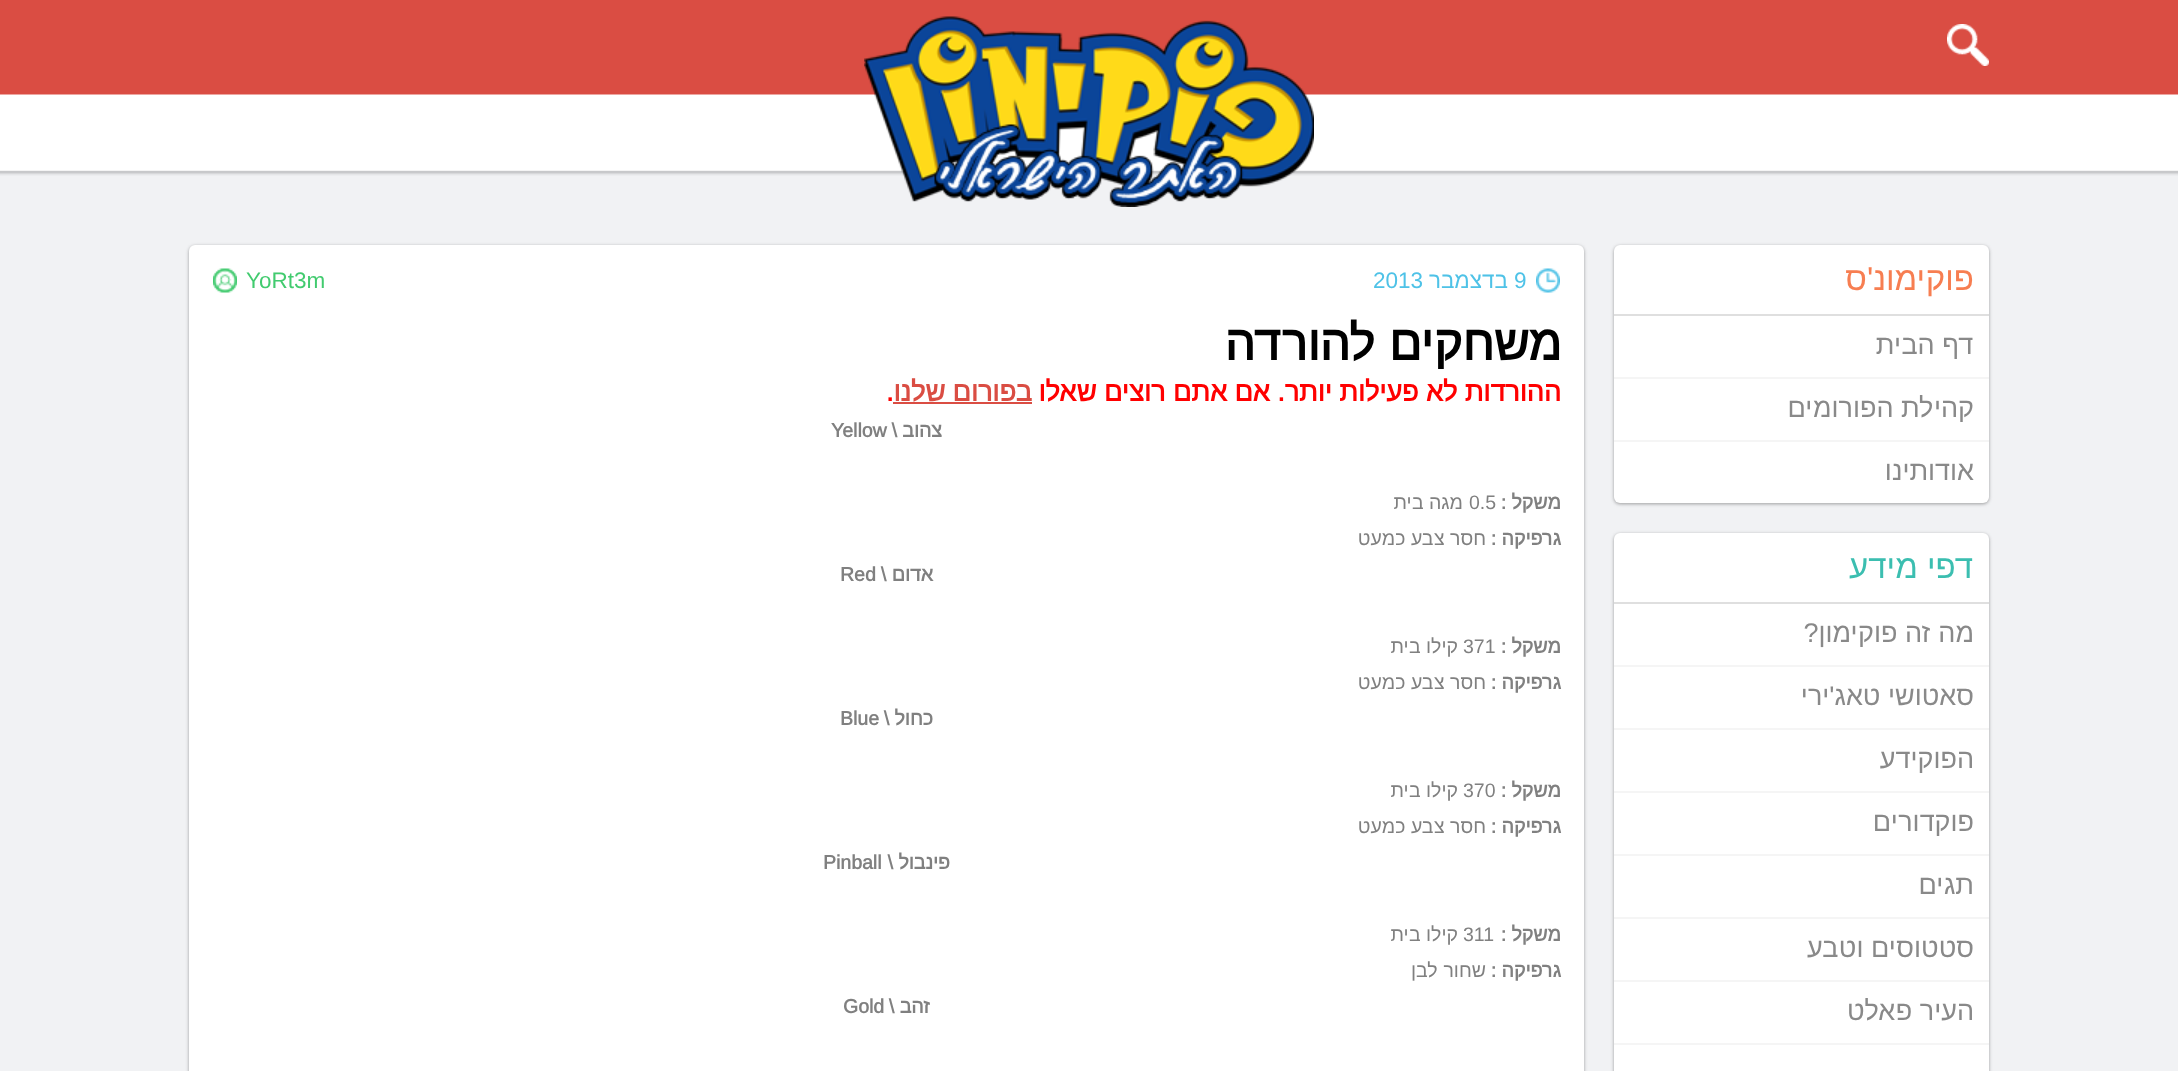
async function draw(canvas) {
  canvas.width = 2178
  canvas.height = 1071
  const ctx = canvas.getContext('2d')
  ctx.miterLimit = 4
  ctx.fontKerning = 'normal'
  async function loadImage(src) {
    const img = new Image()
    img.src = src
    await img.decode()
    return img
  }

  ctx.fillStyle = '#f1f2f4'
  ctx.fillRect(0, 0, 2178, 1071)
  ctx.drawImage(await loadImage('image0.png'), 0, 0, 2178, 176)
  ctx.drawImage(await loadImage('image1.png'), 1947, 24, 42, 42)
  ctx.drawImage(await loadImage('image2.png'), 864, 16, 450, 191)
  ctx.fillStyle = '#0000003d'
  ctx.filter = 'blur(1.5px)'
  ctx.beginPath()
  ctx.roundRect(1614, 246, 375, 258, 6)
  ctx.fill()
  ctx.filter = 'none'
  ctx.fillStyle = '#0000001f'
  ctx.filter = 'blur(2px)'
  ctx.beginPath()
  ctx.roundRect(1614, 246, 375, 258, 6)
  ctx.fill()
  ctx.filter = 'none'
  ctx.fillStyle = '#fff'
  ctx.beginPath()
  ctx.roundRect(1614, 245, 375, 258, 6)
  ctx.fill()
  ctx.fillStyle = '#dfdfdf'
  ctx.fillRect(1614, 314, 375, 2)
  ctx.direction = 'rtl'
  ctx.font = '33px Arimo'
  ctx.fillStyle = '#f77e51'
  ctx.fillText('פוקימונ\'ס', 1974, 290)
  ctx.fillStyle = '#f5f5f5'
  ctx.fillRect(1614, 377, 375, 2)
  ctx.font = '27px Arimo'
  ctx.fillStyle = '#898989'
  ctx.fillText('דף הבית', 1974, 354)
  ctx.fillStyle = '#f5f5f5'
  ctx.fillRect(1614, 440, 375, 2)
  ctx.fillStyle = '#898989'
  ctx.fillText('קהילת הפורומים', 1974, 417)
  ctx.fillText('אודותינו', 1974, 480)
  ctx.fillStyle = '#0000003d'
  ctx.filter = 'blur(1.5px)'
  ctx.beginPath()
  ctx.roundRect(1614, 534, 375, 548, 6)
  ctx.fill()
  ctx.filter = 'none'
  ctx.fillStyle = '#0000001f'
  ctx.filter = 'blur(2px)'
  ctx.beginPath()
  ctx.roundRect(1614, 534, 375, 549, 6)
  ctx.fill()
  ctx.filter = 'none'
  ctx.fillStyle = '#fff'
  ctx.beginPath()
  ctx.roundRect(1614, 533, 375, 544, 6)
  ctx.fill()
  ctx.fillStyle = '#dfdfdf'
  ctx.fillRect(1614, 602, 375, 2)
  ctx.font = '33px Arimo'
  ctx.fillStyle = '#3bbeb0'
  ctx.fillText('דפי מידע', 1974, 578)
  ctx.fillStyle = '#f5f5f5'
  ctx.fillRect(1614, 665, 375, 2)
  ctx.font = '27px Arimo'
  ctx.fillStyle = '#898989'
  ctx.fillText('מה זה פוקימון?', 1974, 642)
  ctx.fillStyle = '#f5f5f5'
  ctx.fillRect(1614, 728, 375, 2)
  ctx.fillStyle = '#898989'
  ctx.fillText('סאטושי טאג\'ירי', 1974, 705)
  ctx.fillStyle = '#f5f5f5'
  ctx.fillRect(1614, 791, 375, 2)
  ctx.fillStyle = '#898989'
  ctx.fillText('הפוקידע', 1974, 768)
  ctx.fillStyle = '#f5f5f5'
  ctx.fillRect(1614, 854, 375, 2)
  ctx.fillStyle = '#898989'
  ctx.fillText('פוקדורים', 1974, 831)
  ctx.fillStyle = '#f5f5f5'
  ctx.fillRect(1614, 917, 375, 2)
  ctx.fillStyle = '#898989'
  ctx.fillText('תגים', 1974, 894)
  ctx.fillStyle = '#f5f5f5'
  ctx.fillRect(1614, 980, 375, 2)
  ctx.fillStyle = '#898989'
  ctx.fillText('סטטוסים וטבע', 1974, 957)
  ctx.fillStyle = '#f5f5f5'
  ctx.fillRect(1614, 1043, 375, 2)
  ctx.fillStyle = '#898989'
  ctx.fillText('העיר פאלט', 1974, 1020)
  ctx.fillStyle = '#0000003d'
  ctx.filter = 'blur(1.5px)'
  ctx.beginPath()
  ctx.roundRect(189, 246, 1395, 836, 6)
  ctx.fill()
  ctx.filter = 'none'
  ctx.fillStyle = '#0000001f'
  ctx.filter = 'blur(2px)'
  ctx.beginPath()
  ctx.roundRect(189, 246, 1395, 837, 6)
  ctx.fill()
  ctx.filter = 'none'
  ctx.fillStyle = '#fff'
  ctx.beginPath()
  ctx.roundRect(189, 245, 1395, 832, 6)
  ctx.fill()
  ctx.drawImage(await loadImage('image3.png'), 1536, 268, 24, 25)
  ctx.direction = 'ltr'
  ctx.font = '22.5px Arimo'
  ctx.fillStyle = '#4ec2e7'
  ctx.fillText('9', 1514, 288)
  ctx.direction = 'rtl'
  ctx.fillText('בדצמבר', 1508, 288)
  ctx.direction = 'ltr'
  ctx.fillText('2013', 1373, 288)
  ctx.fillStyle = '#42cb6f'
  ctx.fillText('YoRt3m', 246, 288)
  ctx.drawImage(await loadImage('image4.png'), 213, 268, 24, 25)
  ctx.direction = 'rtl'
  ctx.font = 'bold 48px Arimo'
  ctx.fillStyle = '#000'
  ctx.fillText('משחקים להורדה', 1562, 360)
  ctx.font = 'bold 27px Arimo'
  ctx.fillStyle = '#f00'
  ctx.fillText('ההורדות לא פעילות יותר. אם אתם רוצים שאלו', 1561, 401)
  ctx.fillStyle = '#da4d43'
  ctx.fillText('בפורום שלנו', 1032, 401)
  ctx.direction = 'ltr'
  ctx.fillStyle = '#f00'
  ctx.fillText('.', 886, 401)
  ctx.fillStyle = '#da4d43'
  ctx.fillRect(893, 402, 139, 2)
  ctx.direction = 'rtl'
  ctx.font = 'bold 19.5px Arimo'
  ctx.fillStyle = '#808080'
  ctx.fillText('צהוב \\', 942, 437)
  ctx.direction = 'ltr'
  ctx.fillText('Yellow', 831, 437)
  ctx.direction = 'rtl'
  ctx.fillText('משקל :', 1561, 509)
  ctx.direction = 'ltr'
  ctx.font = '19.5px Arimo'
  ctx.fillText('0.5', 1469, 509)
  ctx.direction = 'rtl'
  ctx.fillText('מגה בית', 1463, 509)
  ctx.font = 'bold 19.5px Arimo'
  ctx.fillText('גרפיקה :', 1561, 545)
  ctx.font = '19.5px Arimo'
  ctx.fillText('חסר צבע כמעט', 1486, 545)
  ctx.font = 'bold 19.5px Arimo'
  ctx.fillText('אדום \\', 933, 581)
  ctx.direction = 'ltr'
  ctx.fillText('Red', 840, 581)
  ctx.direction = 'rtl'
  ctx.fillText('משקל :', 1561, 653)
  ctx.direction = 'ltr'
  ctx.font = '19.5px Arimo'
  ctx.fillText('371', 1463, 653)
  ctx.direction = 'rtl'
  ctx.fillText('קילו בית', 1458, 653)
  ctx.font = 'bold 19.5px Arimo'
  ctx.fillText('גרפיקה :', 1561, 689)
  ctx.font = '19.5px Arimo'
  ctx.fillText('חסר צבע כמעט', 1486, 689)
  ctx.font = 'bold 19.5px Arimo'
  ctx.fillText('כחול \\', 933, 725)
  ctx.direction = 'ltr'
  ctx.fillText('Blue', 840, 725)
  ctx.direction = 'rtl'
  ctx.fillText('משקל :', 1561, 797)
  ctx.direction = 'ltr'
  ctx.font = '19.5px Arimo'
  ctx.fillText('370', 1463, 797)
  ctx.direction = 'rtl'
  ctx.fillText('קילו בית', 1458, 797)
  ctx.font = 'bold 19.5px Arimo'
  ctx.fillText('גרפיקה :', 1561, 833)
  ctx.font = '19.5px Arimo'
  ctx.fillText('חסר צבע כמעט', 1486, 833)
  ctx.font = 'bold 19.5px Arimo'
  ctx.fillText('פינבול \\', 950, 869)
  ctx.direction = 'ltr'
  ctx.fillText('Pinball', 823, 869)
  ctx.direction = 'rtl'
  ctx.fillText('משקל :', 1561, 941)
  ctx.direction = 'ltr'
  ctx.font = '19.5px Arimo'
  ctx.fillText('311', 1463, 941)
  ctx.direction = 'rtl'
  ctx.fillText('קילו בית', 1458, 941)
  ctx.font = 'bold 19.5px Arimo'
  ctx.fillText('גרפיקה :', 1561, 977)
  ctx.font = '19.5px Arimo'
  ctx.fillText('שחור לבן', 1486, 977)
  ctx.font = 'bold 19.5px Arimo'
  ctx.fillText('זהב \\', 930, 1013)
  ctx.direction = 'ltr'
  ctx.fillText('Gold', 843, 1013)
}

draw(document.querySelector('canvas'))
